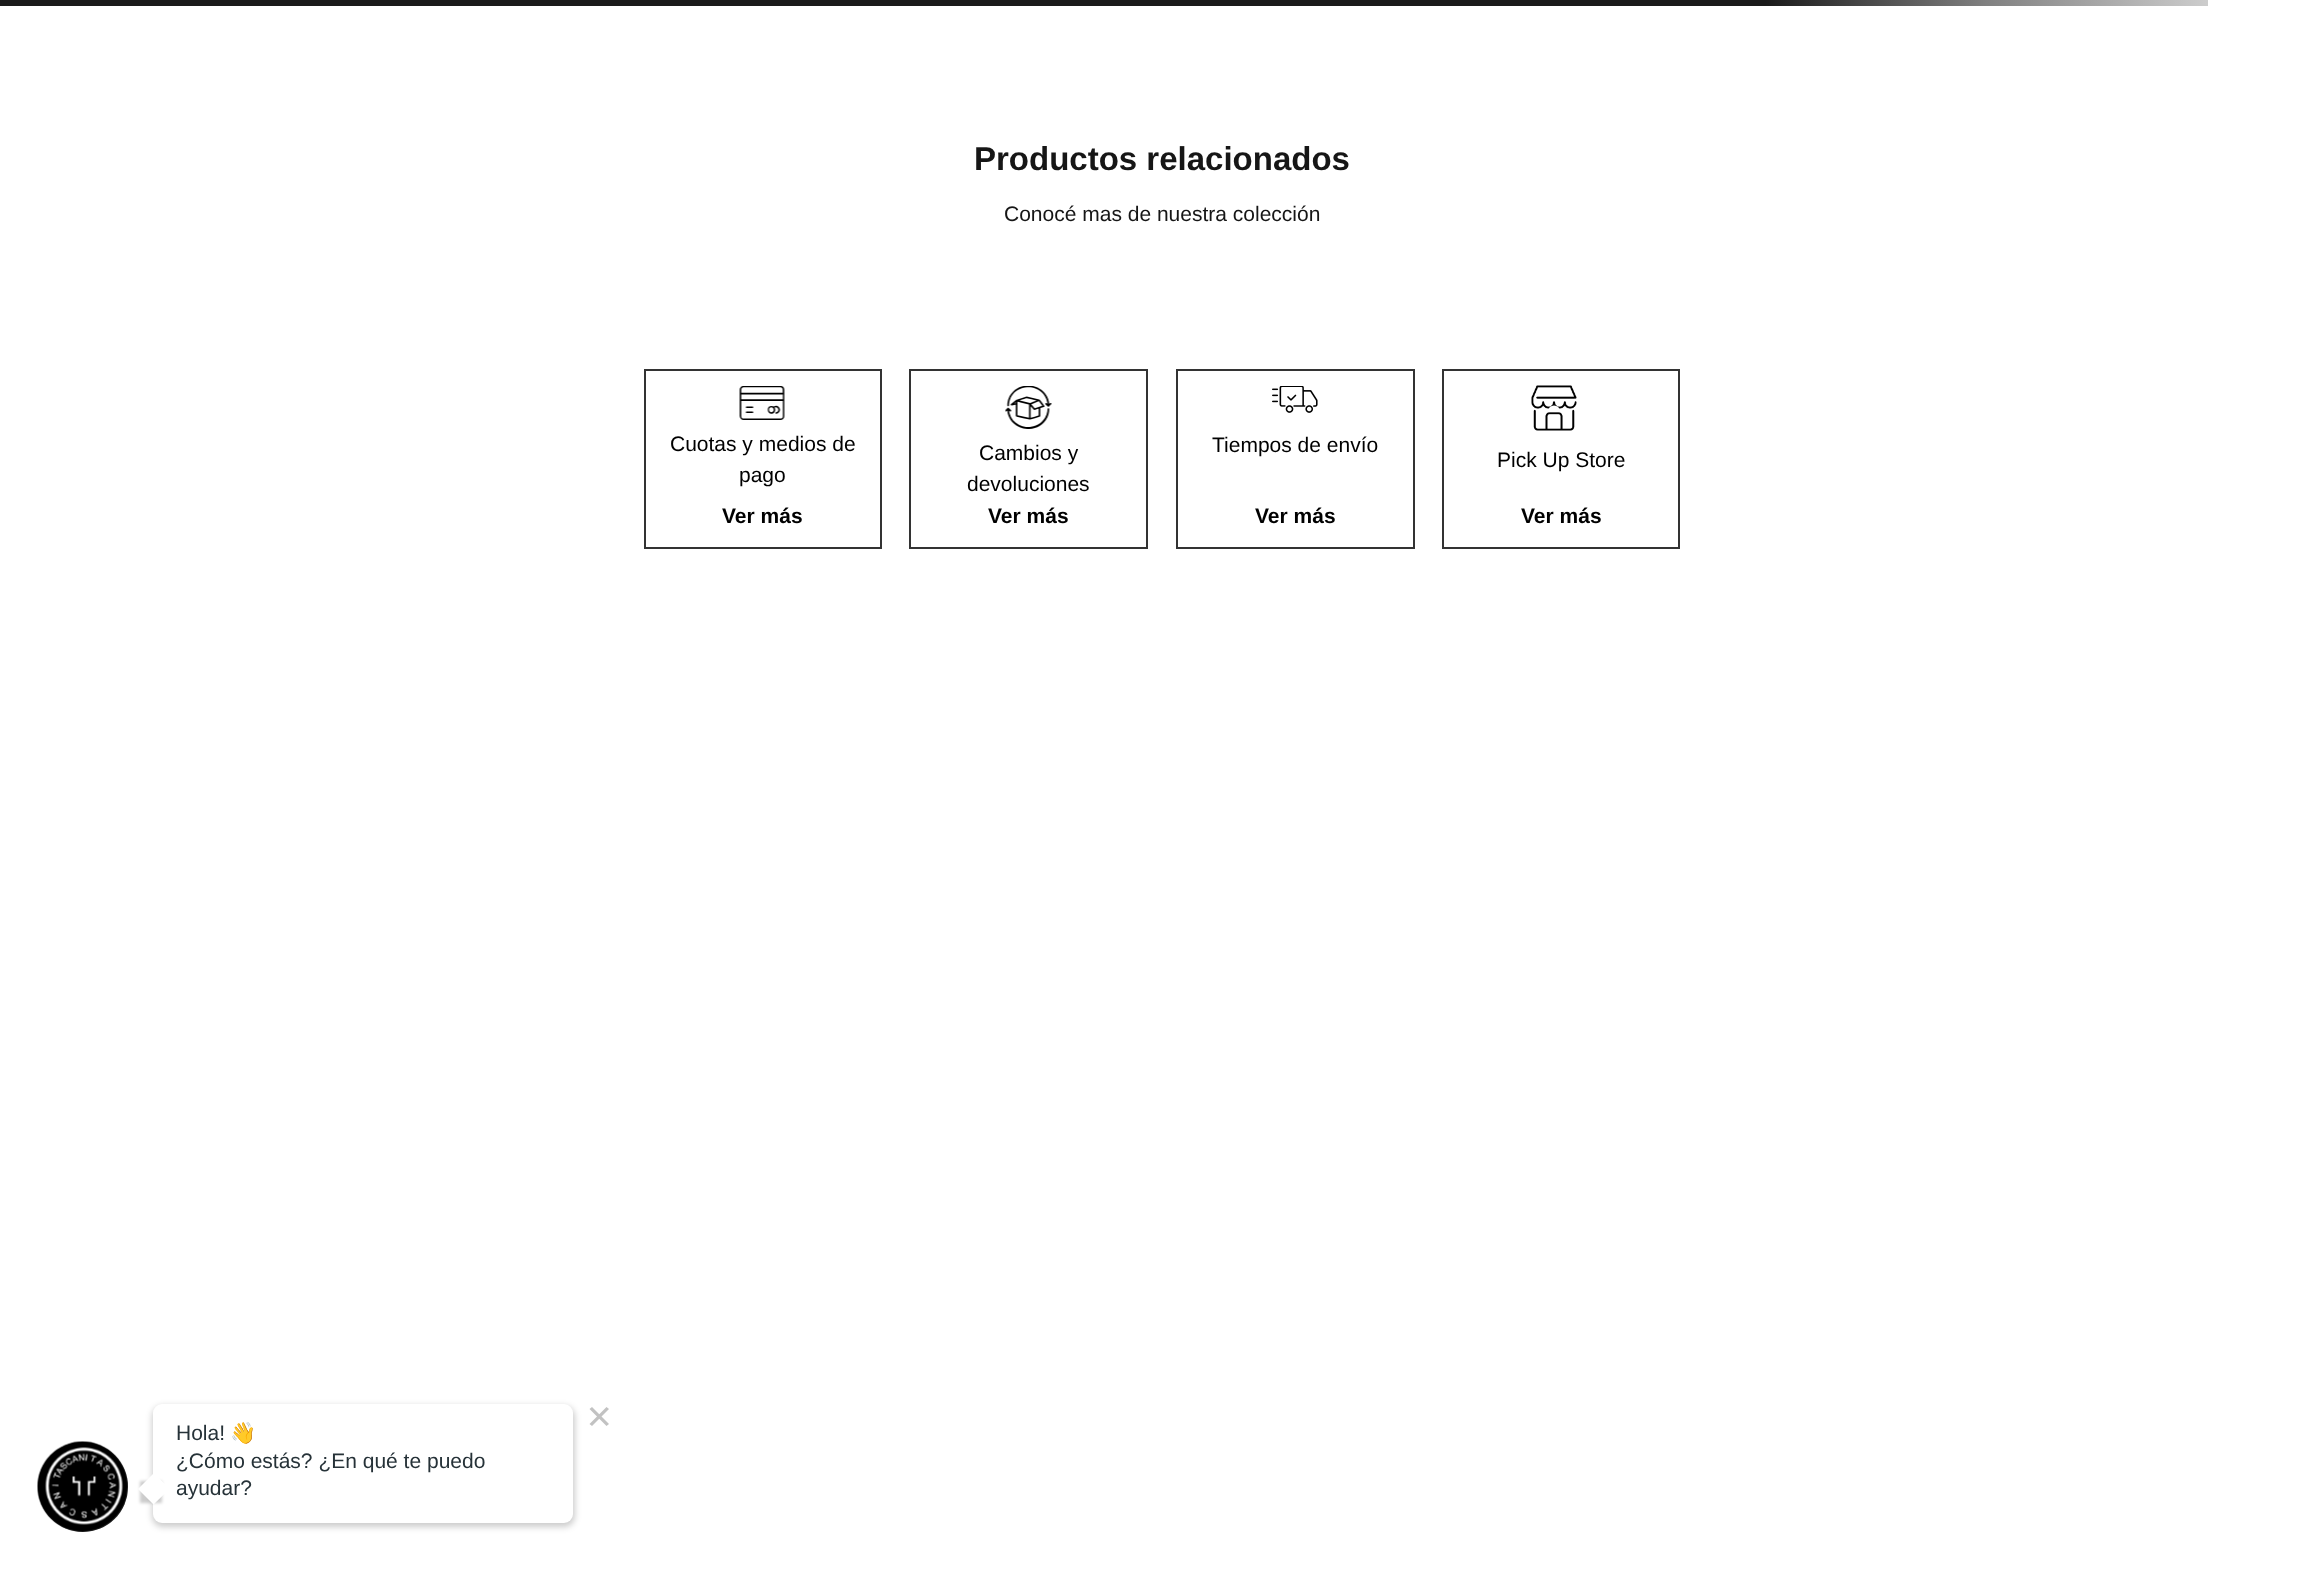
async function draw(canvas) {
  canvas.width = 2323
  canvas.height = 1584
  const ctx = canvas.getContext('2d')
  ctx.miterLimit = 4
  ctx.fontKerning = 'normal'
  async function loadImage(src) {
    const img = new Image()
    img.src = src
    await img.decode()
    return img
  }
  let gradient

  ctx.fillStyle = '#fff'
  ctx.fillRect(0, 0, 2323, 1584)
  gradient = ctx.createLinearGradient(0, 3, 2207, 3)
  gradient.addColorStop(0.8, '#1a1a1a')
  gradient.addColorStop(0.9, '#808080')
  gradient.addColorStop(1, '#ccc')
  ctx.fillStyle = gradient
  ctx.fillRect(0, 0, 2208, 6)
  ctx.font = 'bold 33px Liberation Sans'
  ctx.fillStyle = '#161616'
  ctx.fillText('Productos relacionados', 974, 170)
  ctx.font = '21px Liberation Sans'
  ctx.fillText('Conocé mas de nuestra colección', 1004, 221)
  ctx.strokeStyle = '#333'
  ctx.lineWidth = 2
  ctx.strokeRect(645, 370, 236, 178)
  ctx.drawImage(await loadImage('image0.png'), 739, 386, 46, 34)
  ctx.fillStyle = '#000'
  ctx.fillText('Cuotas y medios de', 670, 451)
  ctx.fillText('pago', 739, 482)
  ctx.font = 'bold 21px Liberation Sans'
  ctx.fillText('Ver más', 722, 523)
  ctx.strokeRect(910, 370, 237, 178)
  ctx.drawImage(await loadImage('image1.png'), 1005, 386, 47, 43)
  ctx.font = '21px Liberation Sans'
  ctx.fillText('Cambios y', 979, 460)
  ctx.fillText('devoluciones', 967, 491)
  ctx.font = 'bold 21px Liberation Sans'
  ctx.fillText('Ver más', 988, 523)
  ctx.strokeRect(1177, 370, 237, 178)
  ctx.drawImage(await loadImage('image2.png'), 1272, 386, 46, 27)
  ctx.font = '21px Liberation Sans'
  ctx.fillText('Tiempos de envío', 1212, 452)
  ctx.font = 'bold 21px Liberation Sans'
  ctx.fillText('Ver más', 1255, 523)
  ctx.strokeRect(1443, 370, 236, 178)
  ctx.drawImage(await loadImage('image3.png'), 1531, 385, 46, 46)
  ctx.font = '21px Liberation Sans'
  ctx.fillText('Pick Up Store', 1497, 467)
  ctx.font = 'bold 21px Liberation Sans'
  ctx.fillText('Ver más', 1521, 523)
  ctx.fillStyle = '#363636'
  ctx.beginPath()
  ctx.arc(83, 1487, 45, 0, 2 * Math.PI)
  ctx.fill()
  ctx.drawImage(await loadImage('image4.png'), 37, 1441, 91, 91)
  ctx.fillStyle = '#c2c2c2'
  ctx.beginPath()
  ctx.moveTo(606.5, 1407)
  ctx.lineTo(609, 1409)
  ctx.lineTo(592, 1426)
  ctx.lineTo(589.5, 1424)
  ctx.closePath()
  ctx.fill()
  ctx.beginPath()
  ctx.moveTo(589.5, 1409)
  ctx.lineTo(592, 1407)
  ctx.lineTo(609, 1424)
  ctx.lineTo(606.5, 1426)
  ctx.closePath()
  ctx.fill()
  ctx.fillStyle = '#00000033'
  ctx.filter = 'blur(3px)'
  ctx.beginPath()
  ctx.roundRect(152, 1406, 423, 121, 11)
  ctx.fill()
  ctx.filter = 'none'
  ctx.fillStyle = '#fff'
  ctx.beginPath()
  ctx.roundRect(153, 1404, 420, 119, 9)
  ctx.fill()
  ctx.fillStyle = '#00000033'
  ctx.filter = 'blur(1.5px)'
  ctx.beginPath()
  ctx.rect(140, 1481, 22, 22)
  ctx.fill()
  ctx.filter = 'none'
  ctx.fillStyle = '#fff'
  ctx.beginPath()
  ctx.moveTo(154, 1473)
  ctx.lineTo(169.5, 1489)
  ctx.lineTo(153.5, 1504.5)
  ctx.lineTo(138, 1489)
  ctx.closePath()
  ctx.fill()
  ctx.font = '21px Liberation Sans'
  ctx.fillStyle = '#263238'
  ctx.fillText('Hola!', 176, 1440)
  ctx.font = '21px Noto Color Emoji'
  ctx.fillText('👋', 230, 1440)
  ctx.font = '21px Liberation Sans'
  ctx.fillText('¿Cómo estás? ¿En qué te puedo', 176, 1468)
  ctx.fillText('ayudar?', 176, 1495)
}

draw(document.querySelector('canvas'))
